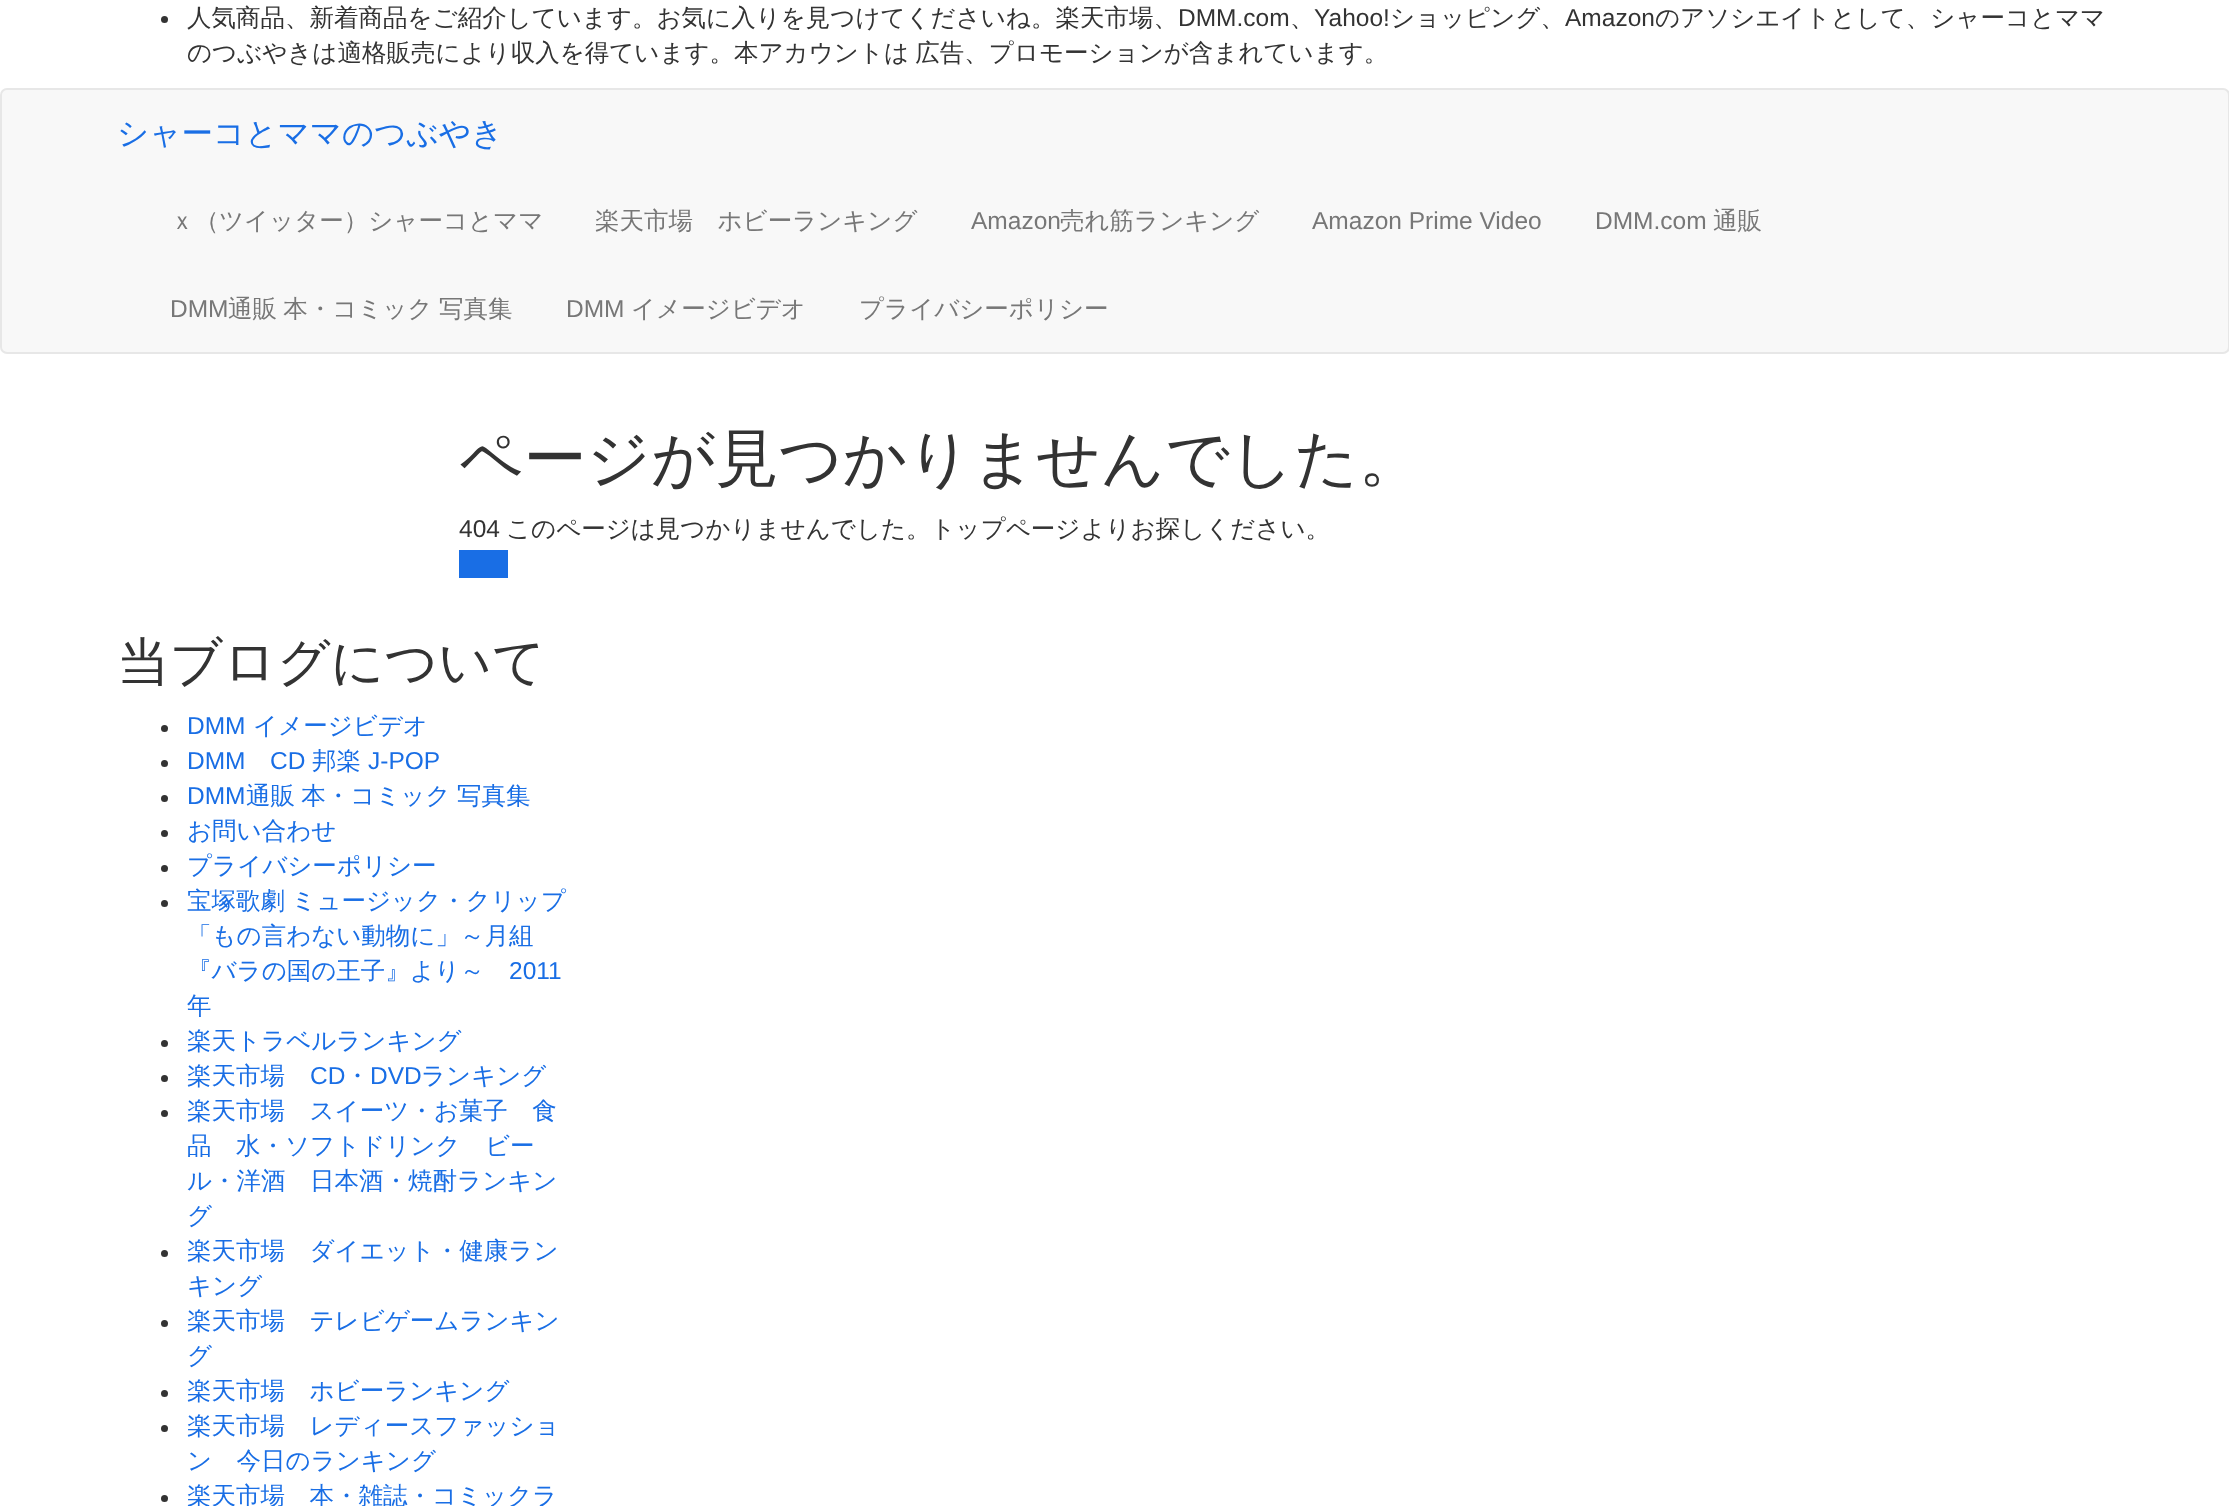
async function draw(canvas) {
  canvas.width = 2229
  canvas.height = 1506
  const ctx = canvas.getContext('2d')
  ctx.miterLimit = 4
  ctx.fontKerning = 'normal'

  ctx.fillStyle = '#fff'
  ctx.fillRect(0, 0, 2229, 1506)
  ctx.fillStyle = '#333'
  ctx.beginPath()
  ctx.arc(164.5, 19.5, 3.5, 0, 2 * Math.PI)
  ctx.fill()
  ctx.font = '500 24.5px WenQuanYi Zen Hei'
  ctx.fillText('人気商品、新着商品をご紹介しています。お気に入りを見つけてくださいね。楽天市場、', 187, 26)
  ctx.font = '24.5px Liberation Sans'
  ctx.fillText('DMM.com', 1178, 26)
  ctx.fillText('Yahoo!', 1314, 26)
  ctx.font = '500 24.5px WenQuanYi Zen Hei'
  ctx.fillText('ショッピング、', 1390, 26)
  ctx.font = '24.5px Liberation Sans'
  ctx.fillText('Amazon', 1565, 26)
  ctx.font = '500 24.5px WenQuanYi Zen Hei'
  ctx.fillText('のアソシエイトとして、シャーコとママ', 1655, 26)
  ctx.fillText('、', 1290, 26)
  ctx.wordSpacing = '-1px'
  ctx.fillText('のつぶやきは適格販売により収入を得ています。本アカウントは 広告、プロモーションが含まれています。', 187, 61)
  ctx.fillStyle = '#f8f8f8'
  ctx.beginPath()
  ctx.roundRect(1, 89, 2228, 264, 6)
  ctx.fill()
  ctx.strokeStyle = '#e7e7e7'
  ctx.lineWidth = 2
  ctx.stroke()
  ctx.wordSpacing = '0px'
  ctx.font = '500 31.5px WenQuanYi Zen Hei'
  ctx.fillStyle = '#196ee5'
  ctx.fillText('シャーコとママのつぶやき', 117, 144)
  ctx.font = '500 24.5px WenQuanYi Zen Hei'
  ctx.fillStyle = '#777'
  ctx.fillText('ｘ（ツイッター）シャーコとママ', 170, 229)
  ctx.fillText('楽天市場　ホビーランキング', 595, 229)
  ctx.font = '24.5px Liberation Sans'
  ctx.fillText('Amazon', 971, 229)
  ctx.font = '500 24.5px WenQuanYi Zen Hei'
  ctx.fillText('売れ筋ランキング', 1060, 229)
  ctx.font = '24.5px Liberation Sans'
  ctx.fillText('Amazon Prime Video', 1312, 229)
  ctx.fillText('DMM.com', 1595, 229)
  ctx.font = '500 24.5px WenQuanYi Zen Hei'
  ctx.fillText('通販', 1713, 229)
  ctx.font = '24.5px Liberation Sans'
  ctx.fillText('DMM', 170, 317)
  ctx.wordSpacing = '-1px'
  ctx.font = '500 24.5px WenQuanYi Zen Hei'
  ctx.fillText('通販 本・コミック 写真集', 228, 317)
  ctx.wordSpacing = '0px'
  ctx.font = '24.5px Liberation Sans'
  ctx.fillText('DMM', 566, 317)
  ctx.font = '500 24.5px WenQuanYi Zen Hei'
  ctx.fillText('イメージビデオ', 631, 317)
  ctx.fillText('プライバシーポリシー', 859, 317)
  ctx.font = '500 63px WenQuanYi Zen Hei'
  ctx.fillStyle = '#333'
  ctx.fillText('ページが見つかりませんでした。', 459, 480)
  ctx.font = '24.5px Liberation Sans'
  ctx.fillText('404', 459, 537)
  ctx.font = '500 24.5px WenQuanYi Zen Hei'
  ctx.fillText('このページは見つかりませんでした。トップページよりお探しください。', 506, 537)
  ctx.fillStyle = '#196ee5'
  ctx.fillRect(459, 550, 49, 28)
  ctx.font = '500 52.5px WenQuanYi Zen Hei'
  ctx.fillStyle = '#333'
  ctx.fillText('当ブログについて', 117, 680)
  ctx.beginPath()
  ctx.arc(164.5, 728.5, 3.5, 0, 2 * Math.PI)
  ctx.fill()
  ctx.font = '24.5px Liberation Sans'
  ctx.fillStyle = '#196ee5'
  ctx.fillText('DMM', 187, 734)
  ctx.font = '500 24.5px WenQuanYi Zen Hei'
  ctx.fillText('イメージビデオ', 253, 734)
  ctx.fillStyle = '#333'
  ctx.beginPath()
  ctx.arc(164.5, 763.5, 3.5, 0, 2 * Math.PI)
  ctx.fill()
  ctx.font = '24.5px Liberation Sans'
  ctx.fillStyle = '#196ee5'
  ctx.fillText('DMM', 187, 769)
  ctx.fillText('CD', 270, 769)
  ctx.font = '500 24.5px WenQuanYi Zen Hei'
  ctx.fillText('邦楽', 312, 769)
  ctx.font = '24.5px Liberation Sans'
  ctx.fillText('J-POP', 368, 769)
  ctx.fillStyle = '#333'
  ctx.beginPath()
  ctx.arc(164.5, 798.5, 3.5, 0, 2 * Math.PI)
  ctx.fill()
  ctx.fillStyle = '#196ee5'
  ctx.fillText('DMM', 187, 804)
  ctx.wordSpacing = '-1px'
  ctx.font = '500 24.5px WenQuanYi Zen Hei'
  ctx.fillText('通販 本・コミック 写真集', 246, 804)
  ctx.fillStyle = '#333'
  ctx.beginPath()
  ctx.arc(164.5, 833.5, 3.5, 0, 2 * Math.PI)
  ctx.fill()
  ctx.wordSpacing = '0px'
  ctx.fillStyle = '#196ee5'
  ctx.fillText('お問い合わせ', 187, 839)
  ctx.fillStyle = '#333'
  ctx.beginPath()
  ctx.arc(164.5, 868.5, 3.5, 0, 2 * Math.PI)
  ctx.fill()
  ctx.fillStyle = '#196ee5'
  ctx.fillText('プライバシーポリシー', 187, 874)
  ctx.fillStyle = '#333'
  ctx.beginPath()
  ctx.arc(164.5, 903.5, 3.5, 0, 2 * Math.PI)
  ctx.fill()
  ctx.wordSpacing = '-1px'
  ctx.fillStyle = '#196ee5'
  ctx.fillText('宝塚歌劇 ミュージック・クリップ', 187, 909)
  ctx.wordSpacing = '0px'
  ctx.fillText('「もの言わない動物に」～月組', 187, 944)
  ctx.fillText('『バラの国の王子』より～', 187, 979)
  ctx.font = '24.5px Liberation Sans'
  ctx.fillText('2011', 509, 979)
  ctx.font = '500 24.5px WenQuanYi Zen Hei'
  ctx.fillText('年', 187, 1014)
  ctx.fillStyle = '#333'
  ctx.beginPath()
  ctx.arc(164.5, 1043.5, 3.5, 0, 2 * Math.PI)
  ctx.fill()
  ctx.fillStyle = '#196ee5'
  ctx.fillText('楽天トラベルランキング', 187, 1049)
  ctx.fillStyle = '#333'
  ctx.beginPath()
  ctx.arc(164.5, 1078.5, 3.5, 0, 2 * Math.PI)
  ctx.fill()
  ctx.fillStyle = '#196ee5'
  ctx.fillText('楽天市場', 187, 1084)
  ctx.font = '24.5px Liberation Sans'
  ctx.fillText('CD', 310, 1084)
  ctx.font = '500 24.5px WenQuanYi Zen Hei'
  ctx.fillText('・', 345, 1084)
  ctx.font = '24.5px Liberation Sans'
  ctx.fillText('DVD', 370, 1084)
  ctx.font = '500 24.5px WenQuanYi Zen Hei'
  ctx.fillText('ランキング', 421, 1084)
  ctx.fillStyle = '#333'
  ctx.beginPath()
  ctx.arc(164.5, 1113.5, 3.5, 0, 2 * Math.PI)
  ctx.fill()
  ctx.fillStyle = '#196ee5'
  ctx.fillText('楽天市場　スイーツ・お菓子　食', 187, 1119)
  ctx.fillText('品　水・ソフトドリンク　ビー', 187, 1154)
  ctx.fillText('ル・洋酒　日本酒・焼酎ランキン', 187, 1189)
  ctx.fillText('グ', 187, 1224)
  ctx.fillStyle = '#333'
  ctx.beginPath()
  ctx.arc(164.5, 1253.5, 3.5, 0, 2 * Math.PI)
  ctx.fill()
  ctx.fillStyle = '#196ee5'
  ctx.fillText('楽天市場　ダイエット・健康ラン', 187, 1259)
  ctx.fillText('キング', 187, 1294)
  ctx.fillStyle = '#333'
  ctx.beginPath()
  ctx.arc(164.5, 1323.5, 3.5, 0, 2 * Math.PI)
  ctx.fill()
  ctx.fillStyle = '#196ee5'
  ctx.fillText('楽天市場　テレビゲームランキン', 187, 1329)
  ctx.fillText('グ', 187, 1364)
  ctx.fillStyle = '#333'
  ctx.beginPath()
  ctx.arc(164.5, 1393.5, 3.5, 0, 2 * Math.PI)
  ctx.fill()
  ctx.fillStyle = '#196ee5'
  ctx.fillText('楽天市場　ホビーランキング', 187, 1399)
  ctx.fillStyle = '#333'
  ctx.beginPath()
  ctx.arc(164.5, 1428.5, 3.5, 0, 2 * Math.PI)
  ctx.fill()
  ctx.fillStyle = '#196ee5'
  ctx.fillText('楽天市場　レディースファッショ', 187, 1434)
  ctx.fillText('ン　今日のランキング', 187, 1469)
  ctx.fillStyle = '#333'
  ctx.beginPath()
  ctx.arc(164.5, 1498.5, 3.5, 0, 2 * Math.PI)
  ctx.fill()
  ctx.fillStyle = '#196ee5'
  ctx.fillText('楽天市場　本・雑誌・コミックラ', 187, 1504)
}

draw(document.querySelector('canvas'))
